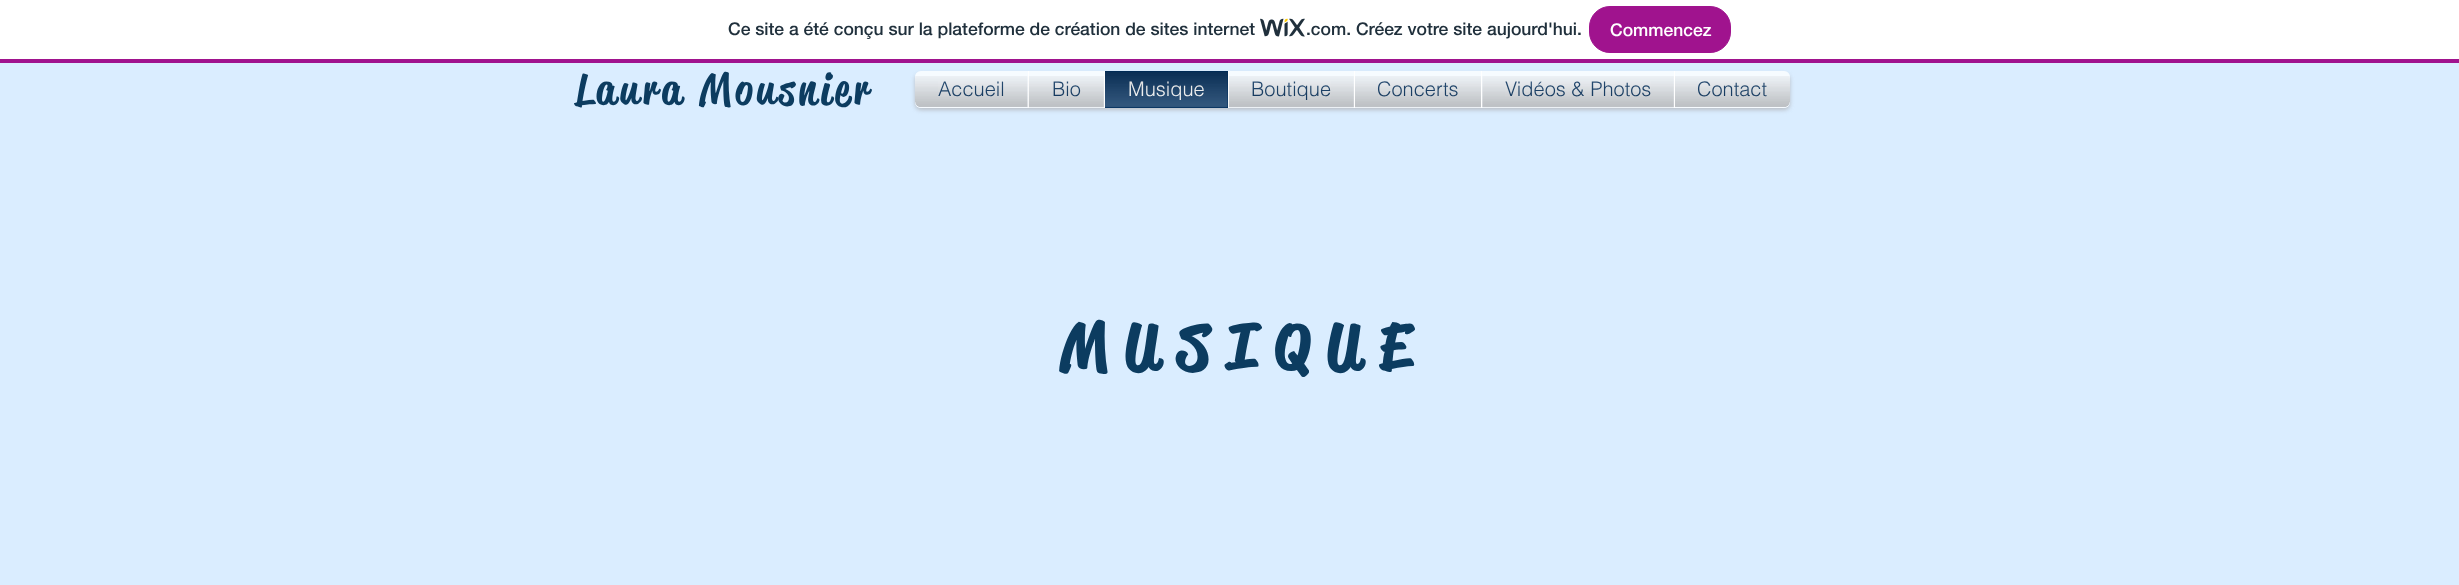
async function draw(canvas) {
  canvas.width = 2459
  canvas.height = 585
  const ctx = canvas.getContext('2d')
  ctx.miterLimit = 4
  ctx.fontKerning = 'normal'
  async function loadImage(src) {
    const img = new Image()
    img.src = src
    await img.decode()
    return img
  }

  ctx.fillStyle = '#fff'
  ctx.fillRect(0, 0, 2459, 585)
  ctx.fillStyle = '#a0138e'
  ctx.fillRect(0, 59, 2459, 4)
  ctx.font = '500 17.5px "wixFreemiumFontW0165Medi"'
  ctx.fillStyle = '#20303c'
  ctx.fillText('Ce site a été conçu sur la plateforme de création de sites internet', 728, 35)
  ctx.drawImage(await loadImage('image0.png'), 1260, 18, 45, 19)
  ctx.fillText('.com. Créez votre site aujourd\'hui.', 1306, 35)
  ctx.fillStyle = '#a0138e'
  ctx.beginPath()
  ctx.roundRect(1589.5, 6.5, 141, 46, 20.5)
  ctx.fill()
  ctx.strokeStyle = '#a0138e'
  ctx.stroke()
  ctx.fillStyle = '#fff'
  ctx.fillText('Commencez', 1610, 36)
  ctx.fillStyle = '#daedff'
  ctx.fillRect(0, 63, 2459, 522)
  ctx.letterSpacing = '4.25px'
  ctx.font = '500 42.5px "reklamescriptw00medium"'
  ctx.fillStyle = '#0c3c60'
  ctx.fillText('Laura Mousnier', 575, 104)
  ctx.save()
  ctx.beginPath()
  ctx.moveTo(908, 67)
  ctx.lineTo(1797, 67)
  ctx.lineTo(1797, 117)
  ctx.lineTo(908, 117)
  ctx.closePath()
  ctx.moveTo(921, 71)
  ctx.lineTo(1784, 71)
  ctx.bezierCurveTo(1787.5, 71, 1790, 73.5, 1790, 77)
  ctx.lineTo(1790, 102)
  ctx.bezierCurveTo(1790, 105.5, 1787.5, 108, 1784, 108)
  ctx.lineTo(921, 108)
  ctx.bezierCurveTo(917.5, 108, 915, 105.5, 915, 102)
  ctx.lineTo(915, 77)
  ctx.bezierCurveTo(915, 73.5, 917.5, 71, 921, 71)
  ctx.closePath()
  ctx.clip('evenodd')
  ctx.fillStyle = '#a29e9e99'
  ctx.filter = 'blur(2px)'
  ctx.beginPath()
  ctx.roundRect(915, 74, 875, 36, 6)
  ctx.fill()
  ctx.filter = 'none'
  ctx.restore()
  ctx.fillStyle = '#ffffff80'
  ctx.beginPath()
  ctx.roundRect(915, 71, 875, 37, 6)
  ctx.fill()
  ctx.drawImage(await loadImage('image1.png'), 915, 76, 875, 31)
  ctx.beginPath()
  ctx.roundRect(915, 71, 113, 37, [6, 0, 0, 6])
  ctx.fill()
  ctx.letterSpacing = '0px'
  ctx.font = '300 20px helvetica'
  ctx.fillStyle = '#002e5d'
  ctx.fillText('Accueil', 938, 96)
  ctx.drawImage(await loadImage('image2.png'), 938, 81, 65, 16)
  ctx.drawImage(await loadImage('image3.png'), 915, 76, 113, 31)
  ctx.fillStyle = '#ffffff80'
  ctx.fillRect(1029, 71, 75, 37)
  ctx.fillStyle = '#fff'
  ctx.fillRect(1028, 71, 1, 37)
  ctx.fillStyle = '#002e5d'
  ctx.fillText('Bio', 1052, 96)
  ctx.drawImage(await loadImage('image4.png'), 1053, 81, 27, 16)
  ctx.drawImage(await loadImage('image5.png'), 1028, 76, 76, 32)
  ctx.fillRect(1105, 71, 123, 37)
  ctx.fillStyle = '#fff'
  ctx.fillRect(1104, 71, 1, 37)
  ctx.fillText('Musique', 1128, 96)
  ctx.drawImage(await loadImage('image6.png'), 1105, 71, 123, 29)
  ctx.drawImage(await loadImage('image7.png'), 1105, 72, 123, 36)
  ctx.fillStyle = '#ffffff80'
  ctx.fillRect(1229, 71, 125, 37)
  ctx.fillStyle = '#fff'
  ctx.fillRect(1228, 71, 1, 37)
  ctx.fillStyle = '#002e5d'
  ctx.fillText('Boutique', 1251, 96)
  ctx.drawImage(await loadImage('image8.png'), 1252, 81, 79, 19)
  ctx.drawImage(await loadImage('image9.png'), 1228, 76, 126, 32)
  ctx.fillStyle = '#ffffff80'
  ctx.fillRect(1355, 71, 126, 37)
  ctx.fillStyle = '#fff'
  ctx.fillRect(1354, 71, 1, 37)
  ctx.fillStyle = '#002e5d'
  ctx.fillText('Concerts', 1377, 96)
  ctx.drawImage(await loadImage('image10.png'), 1378, 81, 80, 16)
  ctx.drawImage(await loadImage('image11.png'), 1355, 76, 126, 32)
  ctx.fillStyle = '#ffffff80'
  ctx.fillRect(1482, 71, 192, 37)
  ctx.fillStyle = '#fff'
  ctx.fillRect(1481, 71, 1, 37)
  ctx.fillStyle = '#002e5d'
  ctx.fillText('Vidéos & Photos', 1505, 96)
  ctx.drawImage(await loadImage('image12.png'), 1505, 81, 146, 16)
  ctx.drawImage(await loadImage('image13.png'), 1482, 76, 192, 32)
  ctx.fillStyle = '#ffffff80'
  ctx.beginPath()
  ctx.roundRect(1674, 71, 116, 37, [0, 6, 6, 0])
  ctx.fill()
  ctx.fillStyle = '#fff'
  ctx.fillRect(1674, 71, 1, 37)
  ctx.fillStyle = '#002e5d'
  ctx.fillText('Contact', 1697, 96)
  ctx.drawImage(await loadImage('image14.png'), 1698, 81, 69, 16)
  ctx.drawImage(await loadImage('image15.png'), 1675, 76, 115, 31)
  ctx.letterSpacing = '18.75px'
  ctx.font = 'bold 62.5px "reklamescriptw00medium"'
  ctx.fillStyle = '#0c3c60'
  ctx.fillText('MUSIQUE', 1060, 369)
}

draw(document.querySelector('canvas'))
